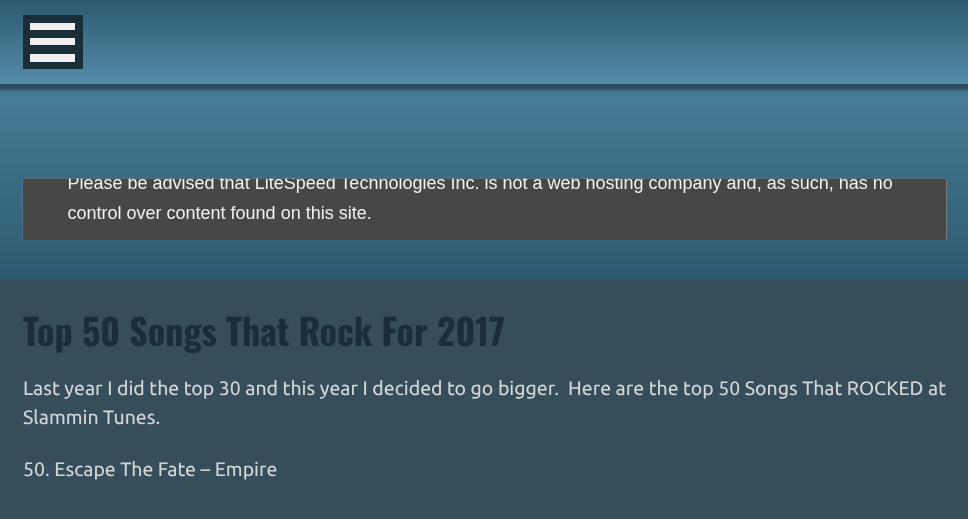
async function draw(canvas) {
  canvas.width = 968
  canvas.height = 519
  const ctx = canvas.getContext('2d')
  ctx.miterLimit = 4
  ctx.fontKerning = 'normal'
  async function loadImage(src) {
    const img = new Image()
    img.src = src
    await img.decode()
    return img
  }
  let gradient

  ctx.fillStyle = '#364e5a'
  ctx.fillRect(0, 0, 968, 519)
  gradient = ctx.createLinearGradient(485, 0, 485, 279)
  gradient.addColorStop(0, '#548caa')
  gradient.addColorStop(1, '#2d5a70')
  ctx.fillStyle = gradient
  ctx.fillRect(0, 84, 968, 195)
  ctx.fillStyle = '#00000066'
  ctx.filter = 'blur(1.5px)'
  ctx.beginPath()
  ctx.rect(-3, 0, 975, 90)
  ctx.fill()
  ctx.filter = 'none'
  gradient = ctx.createLinearGradient(485, 84, 485, 0)
  gradient.addColorStop(0, '#548caa')
  gradient.addColorStop(1, '#2d5a70')
  ctx.fillStyle = gradient
  ctx.fillRect(0, 0, 968, 84)
  ctx.fillStyle = '#192e38'
  ctx.fillRect(23, 15, 60, 54)
  ctx.fillStyle = '#f0f0f0'
  ctx.fillRect(30, 23, 45, 7)
  ctx.fillRect(30, 38, 45, 7)
  ctx.fillRect(30, 54, 45, 8)
  ctx.drawImage(await loadImage('image0.png'), 22, 178, 925, 62)
  ctx.font = 'bold 36px Oswald'
  ctx.fillStyle = '#192e38'
  ctx.fillText('Top 50 Songs That Rock For 2017', 23, 346)
  ctx.font = '19.5px Ubuntu'
  ctx.fillStyle = '#d4d5d6'
  ctx.fillText('Last year I did the top 30 and this year I decided to go bigger.  Here are the top 50 Songs That ROCKED at', 23, 395)
  ctx.fillText('Slammin Tunes.', 23, 424)
  ctx.fillText('50. Escape The Fate – Empire', 23, 476)
}

draw(document.querySelector('canvas'))
